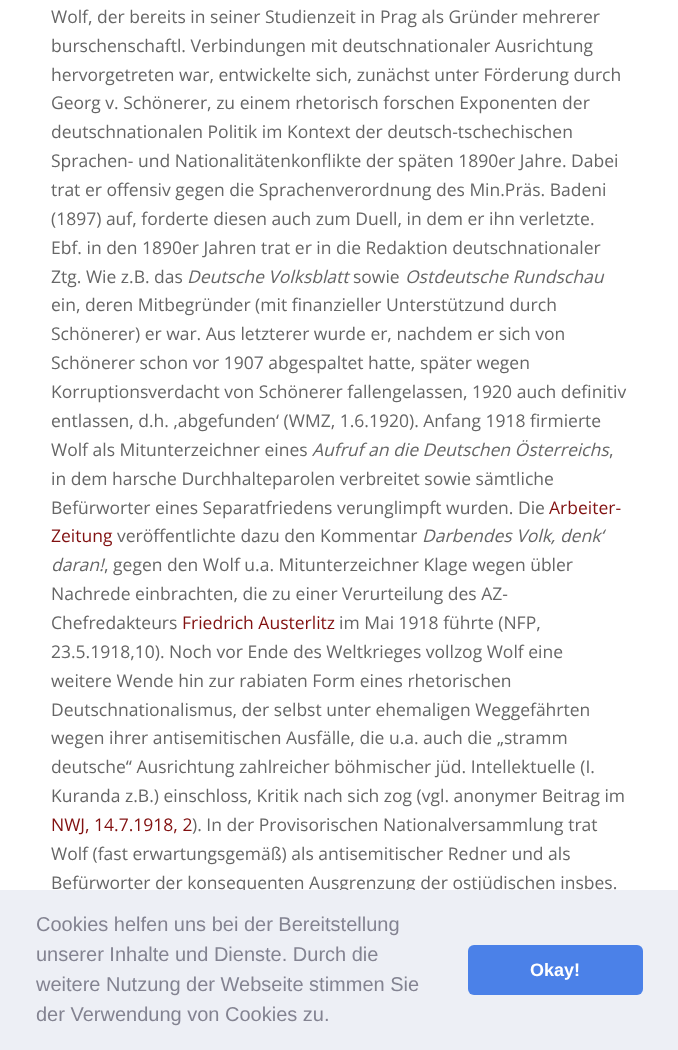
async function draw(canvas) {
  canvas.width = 678
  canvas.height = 1050
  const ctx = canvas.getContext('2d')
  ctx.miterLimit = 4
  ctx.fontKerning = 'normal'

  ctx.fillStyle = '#fff'
  ctx.fillRect(0, 0, 678, 1050)
  ctx.font = '17.5px Open Sans'
  ctx.fillStyle = '#666'
  ctx.fillText('Wolf, der bereits in seiner Studienzeit in Prag als Gründer mehrerer', 51, 23)
  ctx.fillText('burschenschaftl. Verbindungen mit deutschnationaler Ausrichtung', 51, 52)
  ctx.fillText('hervorgetreten war, entwickelte sich, zunächst unter Förderung durch', 51, 81)
  ctx.fillText('Georg v. Schönerer, zu einem rhetorisch forschen Exponenten der', 51, 109)
  ctx.fillText('deutschnationalen Politik im Kontext der deutsch-tschechischen', 51, 138)
  ctx.fillText('Sprachen- und Nationalitätenkonflikte der späten 1890er Jahre. Dabei', 51, 167)
  ctx.fillText('trat er offensiv gegen die Sprachenverordnung des Min.Präs. Badeni', 51, 196)
  ctx.fillText('(1897) auf, forderte diesen auch zum Duell, in dem er ihn verletzte.', 51, 225)
  ctx.fillText('Ebf. in den 1890er Jahren trat er in die Redaktion deutschnationaler', 51, 254)
  ctx.fillText('Ztg. Wie z.B. das', 51, 283)
  ctx.font = 'italic 17.5px Open Sans'
  ctx.fillText('Deutsche Volksblatt', 187, 283)
  ctx.font = '17.5px Open Sans'
  ctx.fillText('sowie', 353, 283)
  ctx.font = 'italic 17.5px Open Sans'
  ctx.fillText('Ostdeutsche Rundschau', 405, 283)
  ctx.font = '17.5px Open Sans'
  ctx.fillText('ein, deren Mitbegründer (mit finanzieller Unterstützund durch', 51, 311)
  ctx.fillText('Schönerer) er war. Aus letzterer wurde er, nachdem er sich von', 51, 340)
  ctx.fillText('Schönerer schon vor 1907 abgespaltet hatte, später wegen', 51, 369)
  ctx.fillText('Korruptionsverdacht von Schönerer fallengelassen, 1920 auch definitiv', 51, 398)
  ctx.fillText('entlassen, d.h. ‚abgefunden‘ (WMZ, 1.6.1920). Anfang 1918 firmierte', 51, 427)
  ctx.fillText('Wolf als Mitunterzeichner eines', 51, 456)
  ctx.font = 'italic 17.5px Open Sans'
  ctx.fillText('Aufruf an die Deutschen Österreichs', 312, 456)
  ctx.font = '17.5px Open Sans'
  ctx.fillText(',', 609, 456)
  ctx.fillText('in dem harsche Durchhalteparolen verbreitet sowie sämtliche', 51, 485)
  ctx.fillText('Befürworter eines Separatfriedens verunglimpft wurden. Die', 51, 514)
  ctx.fillStyle = '#811010'
  ctx.fillText('Arbeiter-', 549, 514)
  ctx.fillText('Zeitung', 51, 542)
  ctx.fillStyle = '#666'
  ctx.fillText('veröffentlichte dazu den Kommentar', 117, 542)
  ctx.font = 'italic 17.5px Open Sans'
  ctx.fillText('Darbendes Volk, denk‘', 422, 542)
  ctx.fillText('daran!', 51, 571)
  ctx.font = '17.5px Open Sans'
  ctx.fillText(', gegen den Wolf u.a. Mitunterzeichner Klage wegen übler', 104, 571)
  ctx.fillText('Nachrede einbrachten, die zu einer Verurteilung des AZ-', 51, 600)
  ctx.fillText('Chefredakteurs', 51, 629)
  ctx.fillStyle = '#811010'
  ctx.fillText('Friedrich Austerlitz', 182, 629)
  ctx.fillStyle = '#666'
  ctx.fillText('im Mai 1918 führte (NFP,', 339, 629)
  ctx.fillText('23.5.1918,10). Noch vor Ende des Weltkrieges vollzog Wolf eine', 51, 658)
  ctx.fillText('weitere Wende hin zur rabiaten Form eines rhetorischen', 51, 687)
  ctx.fillText('Deutschnationalismus, der selbst unter ehemaligen Weggefährten', 51, 716)
  ctx.fillText('wegen ihrer antisemitischen Ausfälle, die u.a. auch die „stramm', 51, 744)
  ctx.fillText('deutsche“ Ausrichtung zahlreicher böhmischer jüd. Intellektuelle (I.', 51, 773)
  ctx.fillText('Kuranda z.B.) einschloss, Kritik nach sich zog (vgl. anonymer Beitrag im', 51, 802)
  ctx.fillStyle = '#811010'
  ctx.fillText('NWJ, 14.7.1918, 2', 51, 831)
  ctx.fillStyle = '#666'
  ctx.fillText('). In der Provisorischen Nationalversammlung trat', 192, 831)
  ctx.fillText('Wolf (fast erwartungsgemäß) als antisemitischer Redner und als', 51, 860)
  ctx.fillText('Befürworter der konsequenten Ausgrenzung der ostjüdischen insbes.', 51, 889)
  ctx.fillStyle = '#edeff5'
  ctx.fillRect(0, 890, 678, 160)
  ctx.font = '20px Liberation Sans'
  ctx.fillStyle = '#838391'
  ctx.fillText('Cookies helfen uns bei der Bereitstellung', 36, 931)
  ctx.fillText('unserer Inhalte und Dienste. Durch die', 36, 961)
  ctx.fillText('weitere Nutzung der Webseite stimmen Sie', 36, 991)
  ctx.fillText('der Verwendung von Cookies zu.', 36, 1021)
  ctx.fillStyle = '#4b81e8'
  ctx.beginPath()
  ctx.roundRect(468, 945, 175, 50, 6)
  ctx.fill()
  ctx.font = 'bold 18px Liberation Sans'
  ctx.fillStyle = '#fff'
  ctx.fillText('Okay!', 530, 976)
}

draw(document.querySelector('canvas'))
